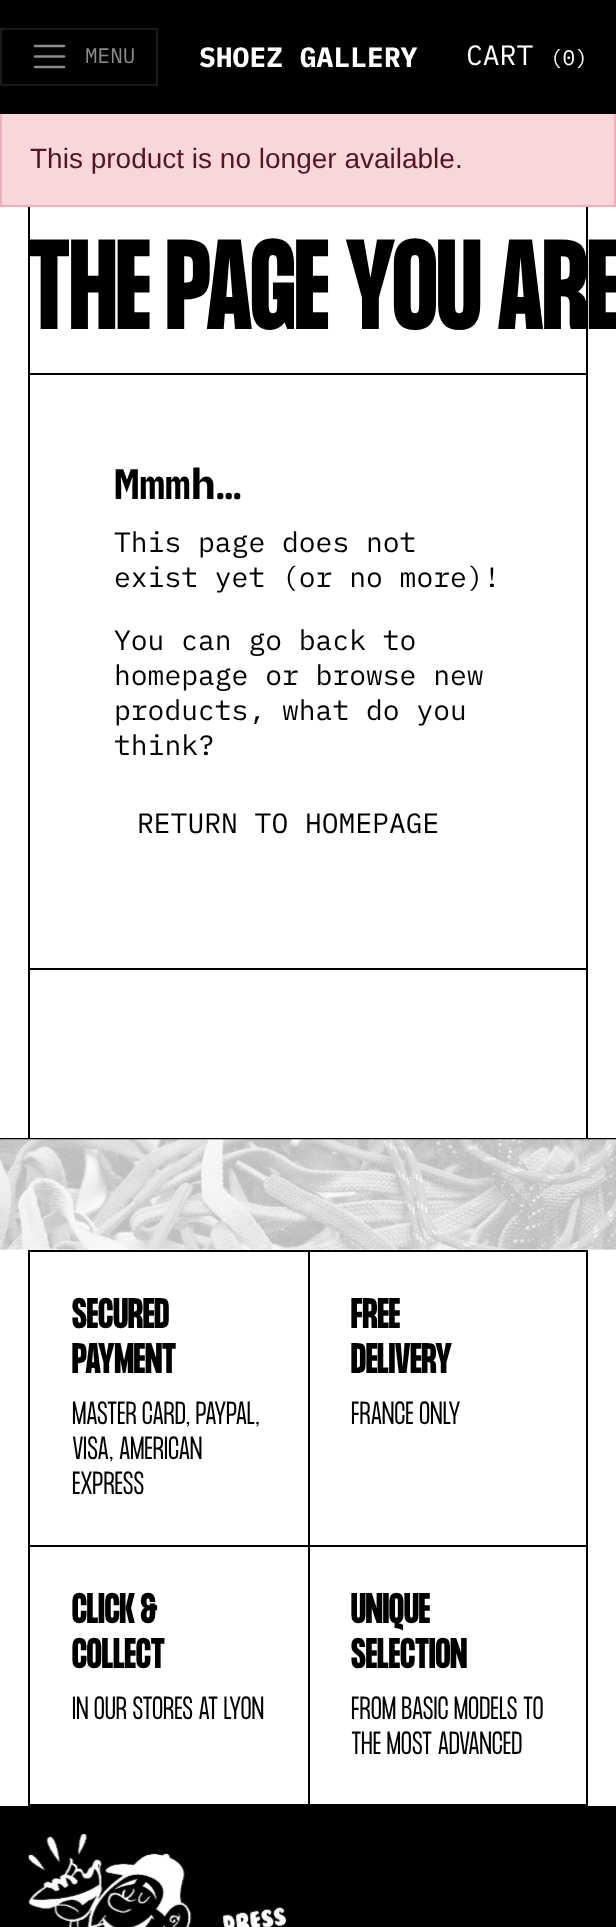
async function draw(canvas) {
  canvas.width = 616
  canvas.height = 1927
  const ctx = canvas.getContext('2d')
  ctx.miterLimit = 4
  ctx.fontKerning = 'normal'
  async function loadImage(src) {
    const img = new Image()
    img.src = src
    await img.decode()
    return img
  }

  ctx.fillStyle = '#fff'
  ctx.fillRect(0, 0, 616, 1927)
  ctx.fillStyle = '#f8d7da'
  ctx.beginPath()
  ctx.rect(1, 113, 614, 93)
  ctx.fill()
  ctx.strokeStyle = '#f1aeb5'
  ctx.lineWidth = 2
  ctx.stroke()
  ctx.fillStyle = '#000'
  ctx.fillRect(0, 0, 616, 114)
  ctx.strokeStyle = '#1a1a1a'
  ctx.strokeRect(1, 29, 156, 56)
  ctx.beginPath()
  ctx.moveTo(35, 46)
  ctx.lineTo(64, 46)
  ctx.moveTo(35, 56.5)
  ctx.lineTo(64, 56.5)
  ctx.moveTo(35, 67)
  ctx.lineTo(64, 67)
  ctx.strokeStyle = '#8c8c8c'
  ctx.lineWidth = 2.6
  ctx.lineCap = 'round'
  ctx.stroke()
  ctx.font = '21px IBM Plex Mono'
  ctx.fillStyle = '#8c8c8c'
  ctx.fillText('MENU', 85, 63)
  ctx.font = 'bold 28px IBM Plex Mono'
  ctx.fillStyle = '#fff'
  ctx.fillText('SHOEZ GALLERY', 199, 67)
  ctx.font = '28px IBM Plex Mono'
  ctx.fillText('CART', 466, 65)
  ctx.font = '21px IBM Plex Mono'
  ctx.fillText('(0)', 550, 65)
  ctx.font = '28px Liberation Sans'
  ctx.fillStyle = '#58151c'
  ctx.fillText('This product is no longer available.', 30, 168)
  ctx.fillStyle = '#000'
  ctx.fillRect(586, 207, 2, 931)
  ctx.fillRect(28, 373, 560, 2)
  ctx.fillRect(28, 207, 2, 168)
  ctx.font = 'bold 112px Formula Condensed'
  ctx.fillText('THE PAGE YOU ARE', 28, 329)
  ctx.fillRect(28, 375, 2, 763)
  ctx.fillRect(30, 968, 556, 2)
  ctx.font = 'bold 42.5px IBM Plex Mono'
  ctx.fillText('Mmmh…', 114, 499)
  ctx.font = '28px IBM Plex Mono'
  ctx.fillText('This page does not', 114, 552)
  ctx.fillText('exist yet (or no more)!', 114, 587)
  ctx.fillText('You can go back to', 114, 650)
  ctx.fillText('homepage or browse new', 114, 685)
  ctx.fillText('products, what do you', 114, 720)
  ctx.fillText('think?', 114, 755)
  ctx.fillText('RETURN TO HOMEPAGE', 137, 833)
  ctx.fillRect(0, 1138, 616, 2)
  ctx.drawImage(await loadImage('image0.png'), 0, 1139, 616, 111)
  ctx.fillRect(28, 1250, 560, 2)
  ctx.fillRect(28, 1804, 560, 2)
  ctx.fillRect(28, 1250, 2, 556)
  ctx.fillRect(308, 1251, 2, 553)
  ctx.fillRect(30, 1545, 280, 2)
  ctx.font = 'bold 37.5px Formula Condensed'
  ctx.fillText('SECURED', 72, 1328)
  ctx.fillText('PAYMENT', 72, 1373)
  ctx.font = '300 28px Formula Condensed'
  ctx.fillText('MASTER CARD, PAYPAL,', 72, 1424)
  ctx.fillText('VISA, AMERICAN', 72, 1459)
  ctx.fillText('EXPRESS', 72, 1494)
  ctx.fillRect(586, 1251, 2, 553)
  ctx.fillRect(310, 1545, 278, 2)
  ctx.font = 'bold 37.5px Formula Condensed'
  ctx.fillText('FREE', 351, 1328)
  ctx.fillText('DELIVERY', 351, 1373)
  ctx.font = '300 28px Formula Condensed'
  ctx.fillText('FRANCE ONLY', 351, 1424)
  ctx.font = 'bold 37.5px Formula Condensed'
  ctx.fillText('CLICK &', 72, 1623)
  ctx.fillText('COLLECT', 72, 1668)
  ctx.font = '300 28px Formula Condensed'
  ctx.fillText('IN OUR STORES AT LYON', 72, 1719)
  ctx.font = 'bold 37.5px Formula Condensed'
  ctx.fillText('UNIQUE', 351, 1623)
  ctx.fillText('SELECTION', 351, 1668)
  ctx.font = '300 28px Formula Condensed'
  ctx.fillText('FROM BASIC MODELS TO', 351, 1719)
  ctx.fillText('THE MOST ADVANCED', 351, 1754)
  ctx.fillRect(0, 1806, 616, 121)
  ctx.drawImage(await loadImage('image1.png'), 28, 1834, 259, 93)
}

draw(document.querySelector('canvas'))
